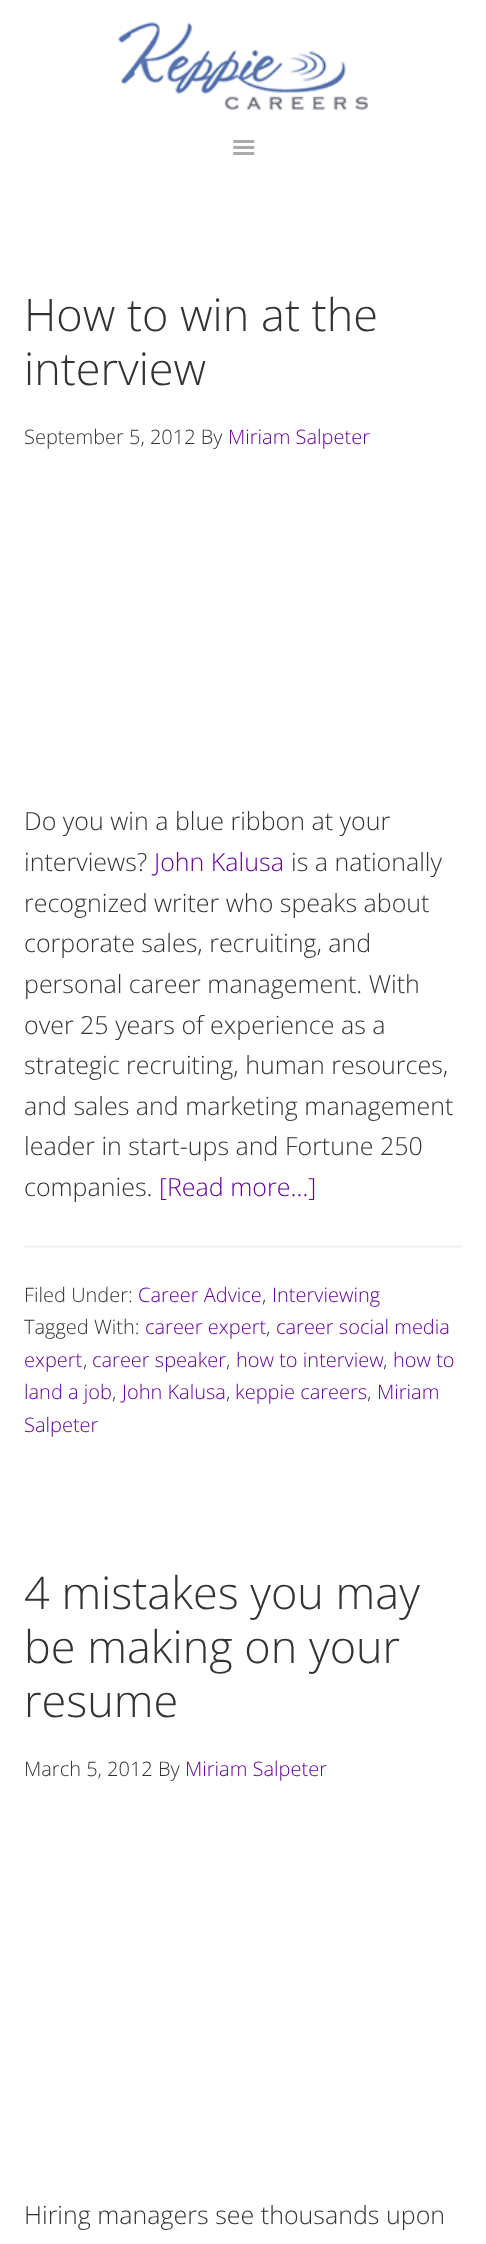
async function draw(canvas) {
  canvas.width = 486
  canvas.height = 2244
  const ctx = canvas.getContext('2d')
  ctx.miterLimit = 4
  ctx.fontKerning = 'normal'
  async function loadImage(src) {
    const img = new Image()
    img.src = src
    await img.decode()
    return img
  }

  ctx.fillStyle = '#fff'
  ctx.fillRect(0, 0, 486, 2244)
  ctx.drawImage(await loadImage('image0.png'), 118, 22, 250, 88)
  ctx.drawImage(await loadImage('image1.png'), 233, 140, 22, 15)
  ctx.font = '300 45px Open Sans'
  ctx.fillStyle = '#333'
  ctx.fillText('How to win at the', 24, 331)
  ctx.fillText('interview', 24, 385)
  ctx.font = '300 20px Open Sans'
  ctx.fillText('September 5, 2012 By', 24, 444)
  ctx.fillStyle = '#609'
  ctx.fillText('Miriam Salpeter', 228, 444)
  ctx.font = '300 25px Open Sans'
  ctx.fillStyle = '#333'
  ctx.fillText('Do you win a blue ribbon at your', 24, 830)
  ctx.fillText('interviews?', 24, 871)
  ctx.fillStyle = '#609'
  ctx.fillText('John Kalusa', 154, 871)
  ctx.fillStyle = '#333'
  ctx.fillText('is a nationally', 291, 871)
  ctx.fillText('recognized writer who speaks about', 24, 912)
  ctx.fillText('corporate sales, recruiting, and', 24, 952)
  ctx.fillText('personal career management. With', 24, 993)
  ctx.fillText('over 25 years of experience as a', 24, 1034)
  ctx.fillText('strategic recruiting, human resources,', 24, 1074)
  ctx.fillText('and sales and marketing management', 24, 1115)
  ctx.fillText('leader in start-ups and Fortune 250', 24, 1155)
  ctx.fillText('companies.', 24, 1196)
  ctx.fillStyle = '#609'
  ctx.fillText('[Read more…]', 159, 1196)
  ctx.fillStyle = '#f5f5f5'
  ctx.fillRect(24, 1245, 439, 3)
  ctx.font = '300 20px Open Sans'
  ctx.fillStyle = '#333'
  ctx.fillText('Filed Under:', 24, 1302)
  ctx.fillStyle = '#609'
  ctx.fillText('Career Advice', 138, 1302)
  ctx.fillStyle = '#333'
  ctx.fillText(',', 262, 1302)
  ctx.fillStyle = '#609'
  ctx.fillText('Interviewing', 272, 1302)
  ctx.fillStyle = '#333'
  ctx.fillText('Tagged With:', 24, 1334)
  ctx.fillStyle = '#609'
  ctx.fillText('career expert', 145, 1334)
  ctx.fillStyle = '#333'
  ctx.fillText(',', 266, 1334)
  ctx.fillStyle = '#609'
  ctx.fillText('career social media', 276, 1334)
  ctx.fillText('expert', 24, 1367)
  ctx.fillStyle = '#333'
  ctx.fillText(',', 83, 1367)
  ctx.fillStyle = '#609'
  ctx.fillText('career speaker', 92, 1367)
  ctx.fillStyle = '#333'
  ctx.fillText(',', 226, 1367)
  ctx.fillStyle = '#609'
  ctx.fillText('how to interview', 236, 1367)
  ctx.fillStyle = '#333'
  ctx.fillText(',', 383, 1367)
  ctx.fillStyle = '#609'
  ctx.fillText('how to', 393, 1367)
  ctx.fillText('land a job', 24, 1399)
  ctx.fillStyle = '#333'
  ctx.fillText(',', 112, 1399)
  ctx.fillStyle = '#609'
  ctx.fillText('John Kalusa', 122, 1399)
  ctx.fillStyle = '#333'
  ctx.fillText(',', 226, 1399)
  ctx.fillStyle = '#609'
  ctx.fillText('keppie careers', 235, 1399)
  ctx.fillStyle = '#333'
  ctx.fillText(',', 367, 1399)
  ctx.fillStyle = '#609'
  ctx.fillText('Miriam', 377, 1399)
  ctx.fillText('Salpeter', 24, 1432)
  ctx.font = '300 45px Open Sans'
  ctx.fillStyle = '#333'
  ctx.fillText('4 mistakes you may', 24, 1609)
  ctx.fillText('be making on your', 24, 1663)
  ctx.fillText('resume', 24, 1717)
  ctx.font = '300 20px Open Sans'
  ctx.fillText('March 5, 2012 By', 24, 1776)
  ctx.fillStyle = '#609'
  ctx.fillText('Miriam Salpeter', 185, 1776)
  ctx.font = '300 25px Open Sans'
  ctx.fillStyle = '#333'
  ctx.fillText('Hiring managers see thousands upon', 24, 2224)
}

draw(document.querySelector('canvas'))
